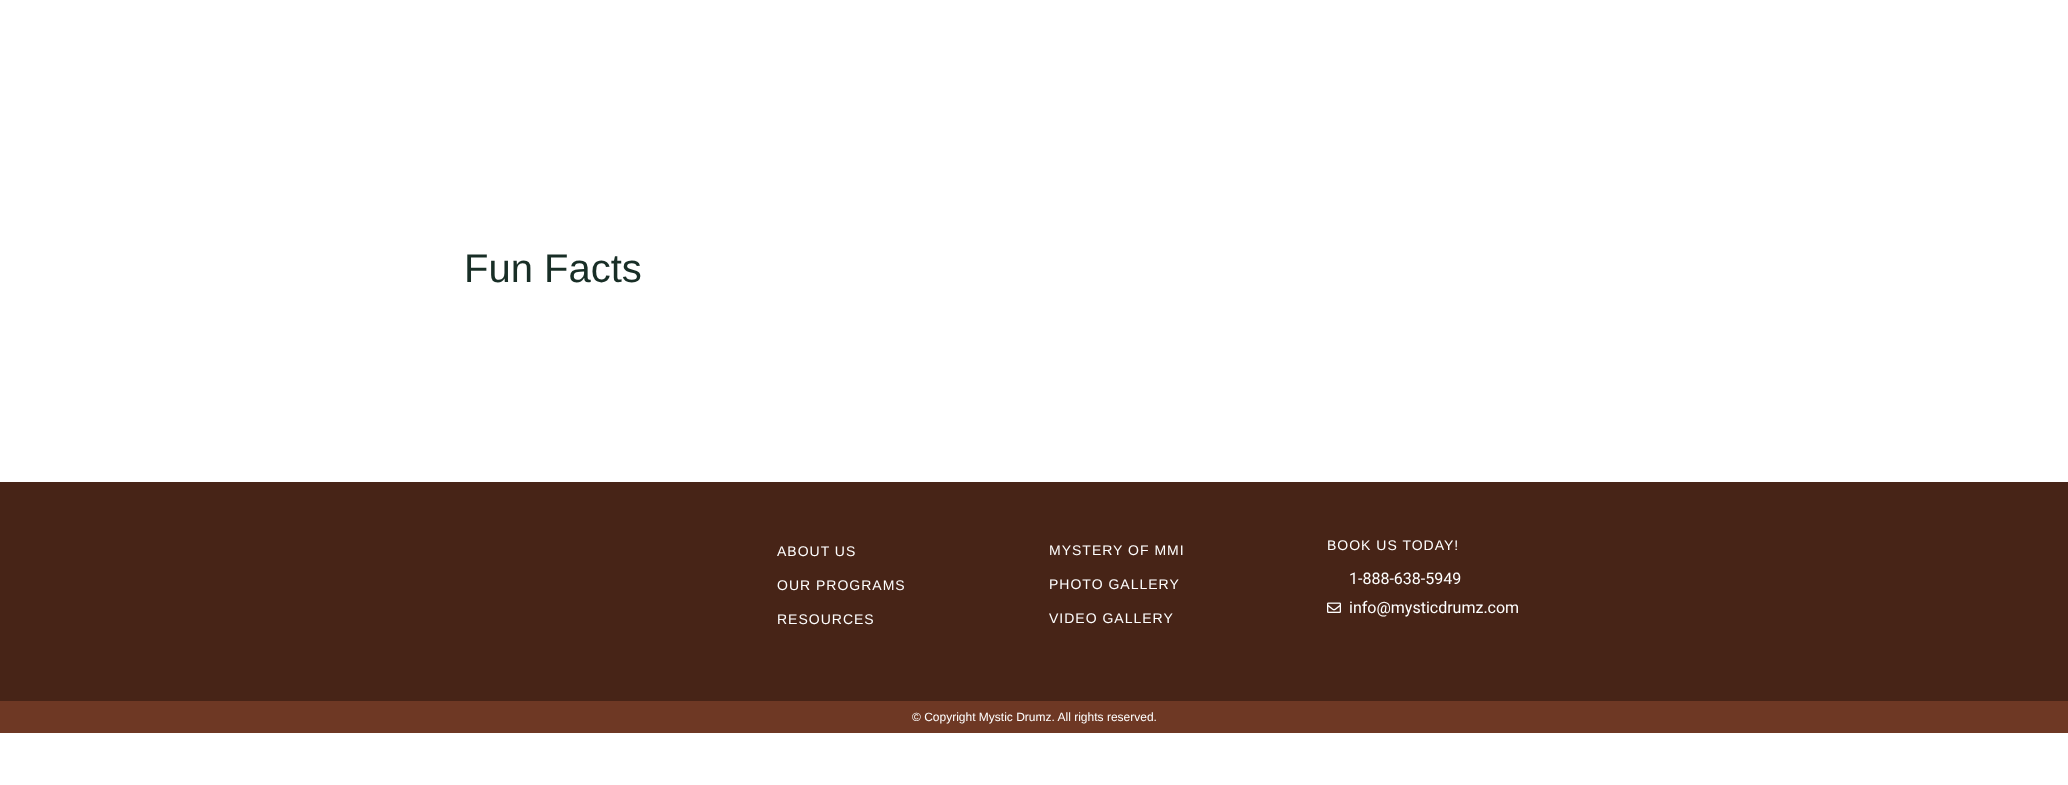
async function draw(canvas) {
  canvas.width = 2068
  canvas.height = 785
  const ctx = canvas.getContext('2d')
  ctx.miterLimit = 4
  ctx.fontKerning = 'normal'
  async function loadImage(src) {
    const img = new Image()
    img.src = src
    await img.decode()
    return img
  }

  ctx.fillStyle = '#fff'
  ctx.fillRect(0, 0, 2068, 785)
  ctx.font = '40px Liberation Sans'
  ctx.fillStyle = '#182e26'
  ctx.fillText('Fun Facts', 464, 282)
  ctx.fillStyle = '#472417'
  ctx.fillRect(0, 482, 2068, 219)
  ctx.letterSpacing = '1px'
  ctx.font = '14px Liberation Sans'
  ctx.fillStyle = '#fff'
  ctx.fillText('ABOUT US', 777, 556)
  ctx.fillText('OUR PROGRAMS', 777, 590)
  ctx.fillText('RESOURCES', 777, 624)
  ctx.fillText('MYSTERY OF MMI', 1049, 555)
  ctx.fillText('PHOTO GALLERY', 1049, 589)
  ctx.fillText('VIDEO GALLERY', 1049, 623)
  ctx.fillText('BOOK US TODAY!', 1327, 550)
  ctx.letterSpacing = '0px'
  ctx.font = '16px Roboto'
  ctx.fillText('1-888-638-5949', 1349, 584)
  ctx.drawImage(await loadImage('image0.png'), 1327, 602, 14, 11)
  ctx.fillText('info@mysticdrumz.com', 1349, 613)
  ctx.fillStyle = '#6e3824'
  ctx.fillRect(0, 701, 2068, 32)
  ctx.font = '12px Liberation Sans'
  ctx.fillStyle = '#fff'
  ctx.fillText('© Copyright Mystic Drumz. All rights reserved.', 912, 721)
}

draw(document.querySelector('canvas'))
